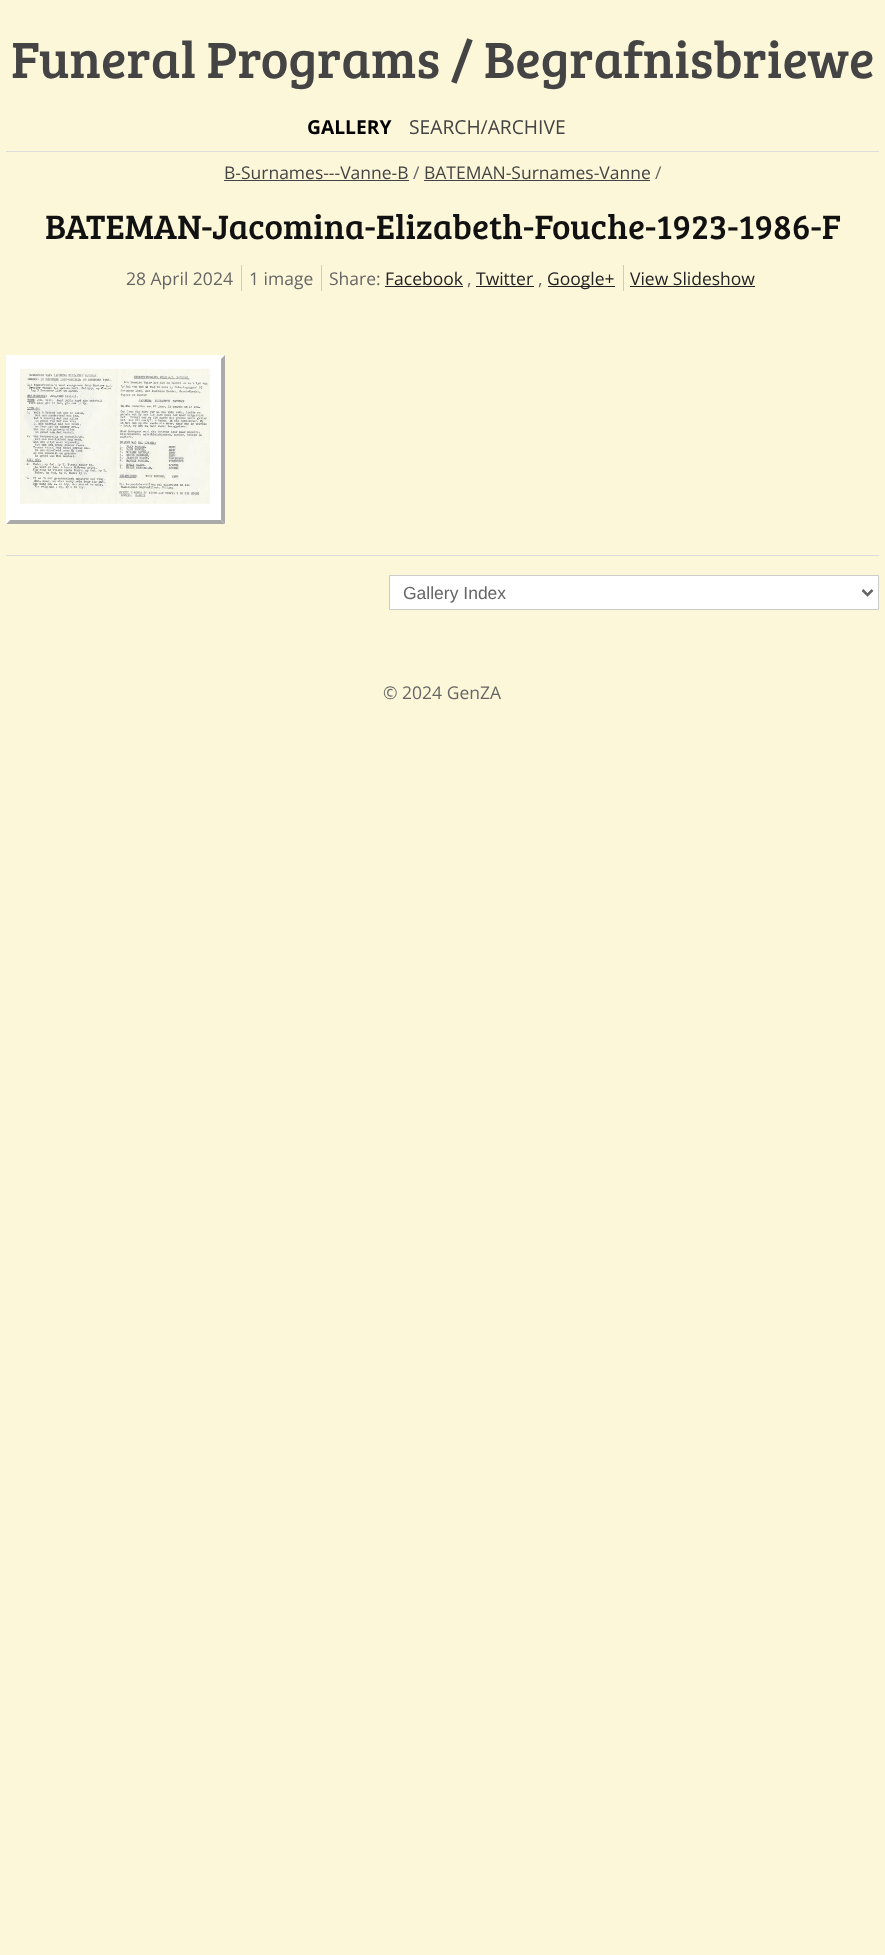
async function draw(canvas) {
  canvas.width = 885
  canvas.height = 1955
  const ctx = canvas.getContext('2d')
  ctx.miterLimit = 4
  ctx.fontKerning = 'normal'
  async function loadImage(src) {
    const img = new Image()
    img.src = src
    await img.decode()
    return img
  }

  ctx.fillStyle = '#fcf7d9'
  ctx.fillRect(0, 0, 885, 1955)
  ctx.fillStyle = '#ddd'
  ctx.fillRect(6, 151, 873, 1)
  ctx.font = '52.5px Bree Serif'
  ctx.fillStyle = '#444'
  ctx.fillText('Funeral Programs / Begrafnisbriewe', 11, 78)
  ctx.font = 'bold 19.25px Open Sans'
  ctx.fillStyle = '#000'
  ctx.fillText('GALLERY', 307, 134)
  ctx.font = '19.25px Open Sans'
  ctx.fillStyle = '#444'
  ctx.fillText('SEARCH/ARCHIVE', 409, 134)
  ctx.font = '17.5px Open Sans'
  ctx.fillText('B-Surnames---Vanne-B', 224, 179)
  ctx.fillRect(224, 180, 185, 1)
  ctx.fillStyle = '#666'
  ctx.fillText('/', 413, 179)
  ctx.fillStyle = '#444'
  ctx.fillText('BATEMAN-Surnames-Vanne', 424, 179)
  ctx.fillRect(424, 180, 226, 1)
  ctx.fillStyle = '#666'
  ctx.fillText('/', 655, 179)
  ctx.font = '35px Bree Serif'
  ctx.fillStyle = '#111'
  ctx.fillText('BATEMAN-Jacomina-Elizabeth-Fouche-1923-1986-F', 45, 239)
  ctx.font = '17.5px Open Sans'
  ctx.fillStyle = '#666'
  ctx.fillText('28 April 2024', 126, 285)
  ctx.fillStyle = '#ccc'
  ctx.fillRect(241, 265, 1, 26)
  ctx.fillStyle = '#666'
  ctx.fillText('1 image', 249, 285)
  ctx.fillStyle = '#ccc'
  ctx.fillRect(321, 265, 1, 26)
  ctx.fillStyle = '#666'
  ctx.fillText('Share:', 329, 285)
  ctx.fillStyle = '#222'
  ctx.fillText('Facebook', 385, 285)
  ctx.fillRect(385, 286, 78, 1)
  ctx.fillStyle = '#666'
  ctx.fillText(',', 467, 285)
  ctx.fillStyle = '#222'
  ctx.fillText('Twitter', 476, 285)
  ctx.fillRect(476, 286, 58, 1)
  ctx.fillStyle = '#666'
  ctx.fillText(',', 538, 285)
  ctx.fillStyle = '#222'
  ctx.fillRect(548, 286, 67, 1)
  ctx.fillText('Google+', 547, 285)
  ctx.fillStyle = '#ccc'
  ctx.fillRect(623, 265, 1, 26)
  ctx.fillStyle = '#222'
  ctx.fillText('View Slideshow', 630, 285)
  ctx.fillRect(630, 286, 125, 1)
  ctx.fillStyle = '#fff'
  ctx.fillRect(6, 355, 219, 169)
  ctx.fillStyle = '#aaa'
  ctx.beginPath()
  ctx.moveTo(225, 355)
  ctx.lineTo(225, 524)
  ctx.lineTo(221, 520)
  ctx.lineTo(221, 359)
  ctx.closePath()
  ctx.fill()
  ctx.beginPath()
  ctx.moveTo(225, 524)
  ctx.lineTo(6, 524)
  ctx.lineTo(10, 520)
  ctx.lineTo(221, 520)
  ctx.closePath()
  ctx.fill()
  ctx.fillStyle = '#fff'
  ctx.beginPath()
  ctx.moveTo(6, 524)
  ctx.lineTo(6, 355)
  ctx.lineTo(10, 359)
  ctx.lineTo(10, 520)
  ctx.closePath()
  ctx.fill()
  ctx.drawImage(await loadImage('image0.png'), 20, 368, 190, 136)
  ctx.fillStyle = '#ddd'
  ctx.fillRect(6, 555, 873, 1)
  ctx.fillStyle = '#fff'
  ctx.beginPath()
  ctx.rect(389.5, 575.5, 489, 34)
  ctx.fill()
  ctx.strokeStyle = '#ccc'
  ctx.stroke()
  ctx.beginPath()
  ctx.moveTo(862.5, 590)
  ctx.lineTo(867.5, 595)
  ctx.lineTo(872.5, 590)
  ctx.strokeStyle = '#666'
  ctx.lineWidth = 2.5
  ctx.stroke()
  ctx.font = '17.5px Liberation Sans'
  ctx.fillStyle = '#666'
  ctx.fillText('Gallery Index', 403, 599)
  ctx.font = '17.5px Open Sans'
  ctx.fillText('© 2024 GenZA', 383, 699)
}

draw(document.querySelector('canvas'))
